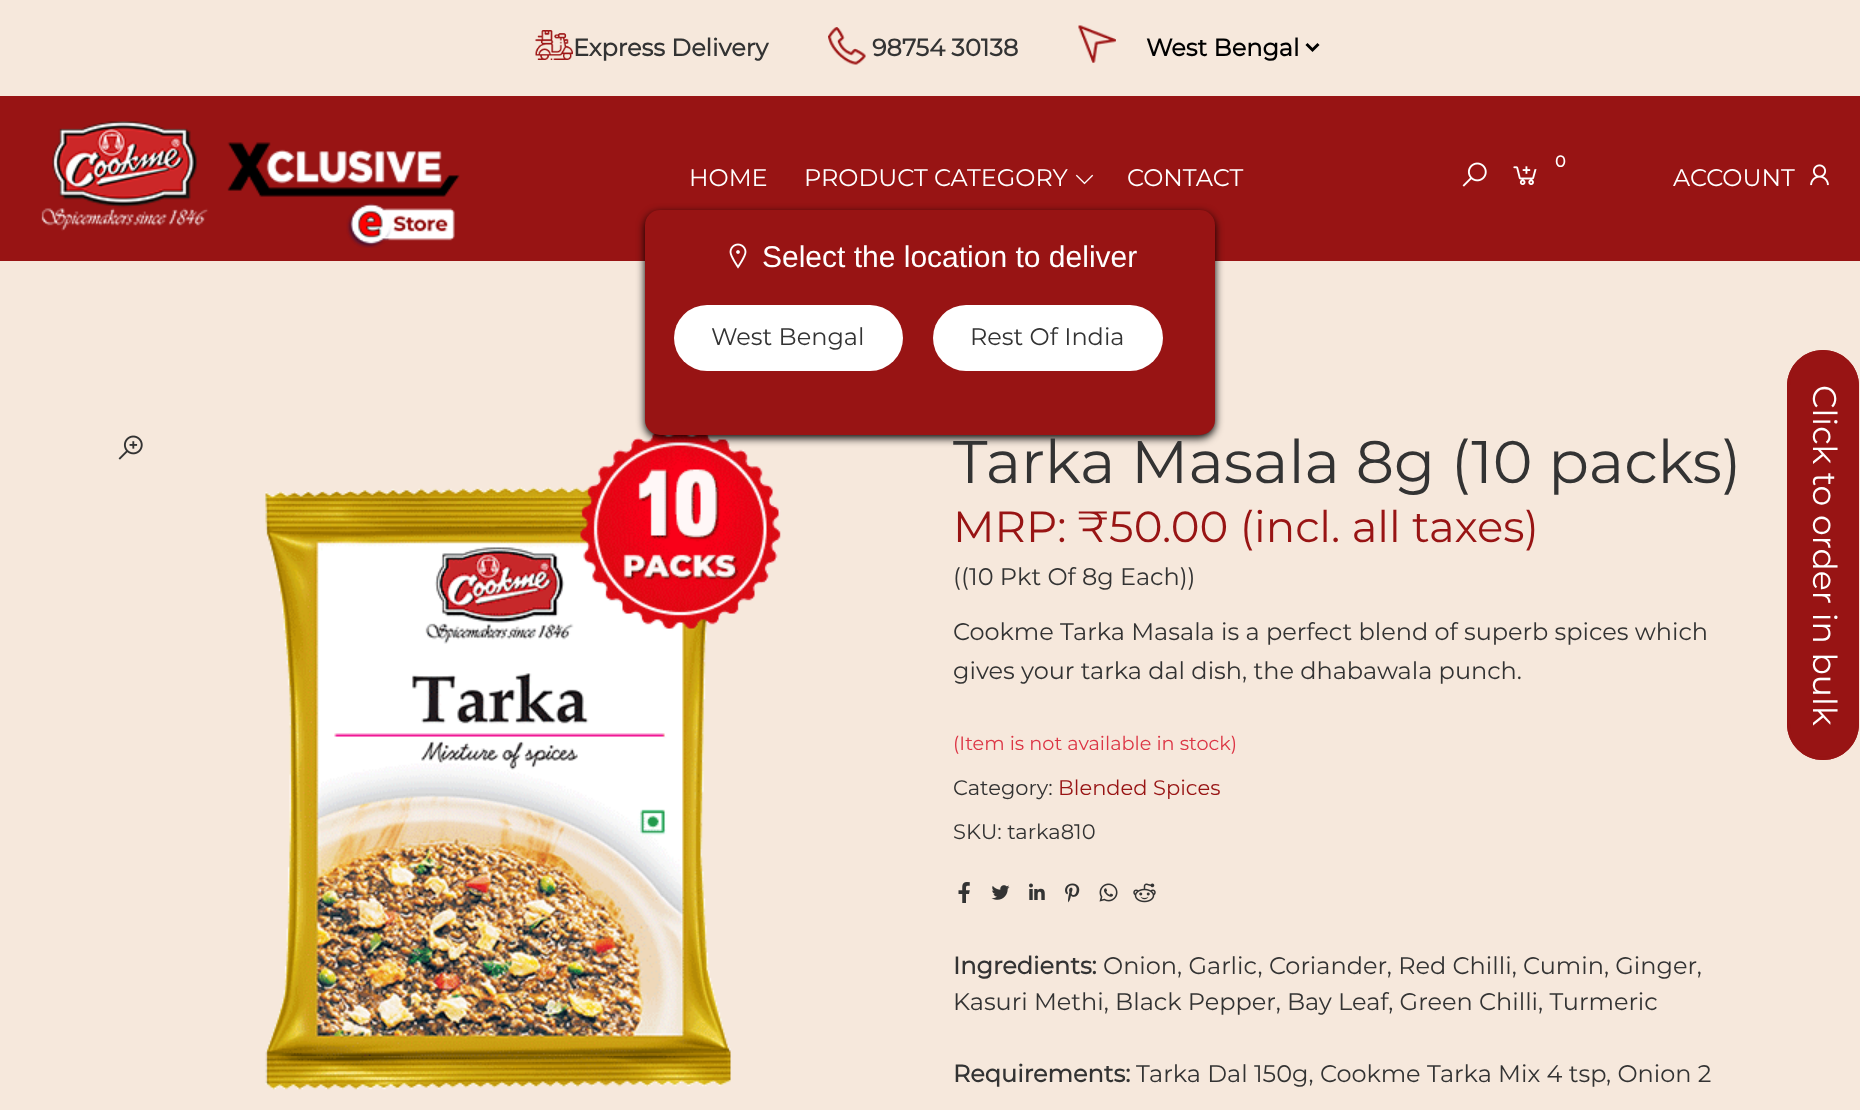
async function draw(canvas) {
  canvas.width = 1860
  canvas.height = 1110
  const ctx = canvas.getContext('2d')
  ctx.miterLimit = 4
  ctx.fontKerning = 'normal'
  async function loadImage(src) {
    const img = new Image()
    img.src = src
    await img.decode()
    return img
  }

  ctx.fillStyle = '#f6e8dc'
  ctx.fillRect(0, 0, 1860, 1110)
  ctx.drawImage(await loadImage('image0.png'), 535, 30, 38, 30)
  ctx.font = 'bold 24px Montserrat'
  ctx.fillStyle = '#333'
  ctx.fillText('Express Delivery', 573, 56)
  ctx.drawImage(await loadImage('image1.png'), 828, 27, 38, 38)
  ctx.fillText('98754 30138', 872, 56)
  ctx.drawImage(await loadImage('image2.png'), 1078, 25, 38, 38)
  ctx.beginPath()
  ctx.moveTo(1306.5, 44)
  ctx.lineTo(1312.5, 50)
  ctx.lineTo(1318.5, 44)
  ctx.strokeStyle = '#000'
  ctx.lineWidth = 3
  ctx.stroke()
  ctx.fillStyle = '#000'
  ctx.fillText('West Bengal', 1146, 56)
  ctx.fillStyle = '#981414'
  ctx.fillRect(0, 96, 1860, 165)
  ctx.drawImage(await loadImage('image3.png'), 41, 121, 419, 127)
  ctx.font = '24px Montserrat'
  ctx.fillStyle = '#fff'
  ctx.fillText('HOME', 689, 186)
  ctx.fillText('PRODUCT CATEGORY', 804, 186)
  ctx.drawImage(await loadImage('image4.png'), 1075, 174, 19, 11)
  ctx.fillText('CONTACT', 1127, 186)
  ctx.drawImage(await loadImage('image5.png'), 1462, 162, 25, 25)
  ctx.font = 'bold 16px Montserrat'
  ctx.fillText('0', 1555, 167)
  ctx.drawImage(await loadImage('image6.png'), 1513, 166, 24, 19)
  ctx.font = '24px Montserrat'
  ctx.fillText('ACCOUNT', 1673, 186)
  ctx.drawImage(await loadImage('image7.png'), 1810, 164, 19, 22)
  ctx.drawImage(await loadImage('image10.png'), 265, 433, 516, 657)
  ctx.fillStyle = '#000'
  ctx.filter = 'blur(4px)'
  ctx.beginPath()
  ctx.roundRect(645, 213, 570, 225, 15)
  ctx.fill()
  ctx.filter = 'none'
  ctx.fillStyle = '#981414'
  ctx.beginPath()
  ctx.roundRect(645, 210, 570, 225, 15)
  ctx.fill()
  ctx.drawImage(await loadImage('image8.png'), 729, 243, 18, 26)
  ctx.font = '30px Liberation Sans'
  ctx.fillStyle = '#fff'
  ctx.fillText('Select the location to deliver', 762, 267)
  ctx.beginPath()
  ctx.roundRect(674, 305, 229, 66, 33)
  ctx.fill()
  ctx.font = '24px Montserrat'
  ctx.fillStyle = '#333'
  ctx.fillText('West Bengal', 711, 345)
  ctx.fillStyle = '#fff'
  ctx.beginPath()
  ctx.roundRect(933, 305, 230, 66, 33)
  ctx.fill()
  ctx.fillStyle = '#333'
  ctx.fillText('Rest Of India', 970, 345)
  ctx.drawImage(await loadImage('image9.png'), 118, 435, 25, 25)
  ctx.font = '60px Montserrat'
  ctx.fillText('Tarka Masala 8g (10 packs)', 953, 483)
  ctx.font = '43.5px Montserrat'
  ctx.fillStyle = '#981414'
  ctx.fillText('MRP: ₹50.00 (incl. all taxes)', 953, 542)
  ctx.font = '24px Montserrat'
  ctx.fillStyle = '#333'
  ctx.fillText('((10 Pkt Of 8g Each))', 953, 585)
  ctx.fillText('Cookme Tarka Masala is a perfect blend of superb spices which', 953, 640)
  ctx.fillText('gives your tarka dal dish, the dhabawala punch.', 953, 679)
  ctx.font = '19.25px Montserrat'
  ctx.fillStyle = '#dc3545'
  ctx.fillText('(Item is not available in stock)', 953, 750)
  ctx.font = '21px Montserrat'
  ctx.fillStyle = '#333'
  ctx.fillText('Category:', 953, 795)
  ctx.fillStyle = '#981414'
  ctx.fillText('Blended Spices', 1058, 795)
  ctx.fillStyle = '#333'
  ctx.fillText('SKU: tarka810', 953, 839)
  ctx.drawImage(await loadImage('image11.png'), 958, 882, 12, 21)
  ctx.drawImage(await loadImage('image12.png'), 991, 885, 19, 15)
  ctx.drawImage(await loadImage('image13.png'), 1029, 883, 16, 17)
  ctx.drawImage(await loadImage('image14.png'), 1065, 883, 15, 20)
  ctx.drawImage(await loadImage('image15.png'), 1099, 883, 19, 19)
  ctx.drawImage(await loadImage('image16.png'), 1133, 883, 23, 20)
  ctx.font = 'bold 24px Montserrat'
  ctx.fillText('Ingredients:', 953, 974)
  ctx.font = '24px Montserrat'
  ctx.fillText('Onion, Garlic, Coriander, Red Chilli, Cumin, Ginger,', 1103, 974)
  ctx.fillText('Kasuri Methi, Black Pepper, Bay Leaf, Green Chilli, Turmeric', 953, 1010)
  ctx.font = 'bold 24px Montserrat'
  ctx.fillText('Requirements:', 953, 1082)
  ctx.font = '24px Montserrat'
  ctx.fillText('Tarka Dal 150g, Cookme Tarka Mix 4 tsp, Onion 2', 1136, 1082)
  ctx.fillStyle = '#981414'
  ctx.beginPath()
  ctx.moveTo(1859, 386)
  ctx.lineTo(1859, 724)
  ctx.bezierCurveTo(1859, 744, 1843, 760, 1823, 760)
  ctx.bezierCurveTo(1803, 760, 1787, 744, 1787, 724)
  ctx.lineTo(1787, 386)
  ctx.bezierCurveTo(1787, 366, 1803, 350, 1823, 350)
  ctx.bezierCurveTo(1843, 350, 1859, 366, 1859, 386)
  ctx.closePath()
  ctx.fill()
  ctx.beginPath()
  ctx.moveTo(1857.5, 386)
  ctx.lineTo(1857.5, 724)
  ctx.bezierCurveTo(1857.5, 743, 1842, 758.5, 1823, 758.5)
  ctx.bezierCurveTo(1804, 758.5, 1788.5, 743, 1788.5, 724)
  ctx.lineTo(1788.5, 386)
  ctx.bezierCurveTo(1788.5, 367, 1804, 351.5, 1823, 351.5)
  ctx.bezierCurveTo(1842, 351.5, 1857.5, 367, 1857.5, 386)
  ctx.closePath()
  ctx.strokeStyle = '#981414'
  ctx.stroke()
  ctx.font = '33px Montserrat'
  ctx.fillStyle = '#fff'
  ctx.save()
  ctx.translate(1813, 385)
  ctx.rotate(90 * Math.PI / 180)
  ctx.fillText('Click to order in bulk', 0, 0)
  ctx.restore()
}

draw(document.querySelector('canvas'))
